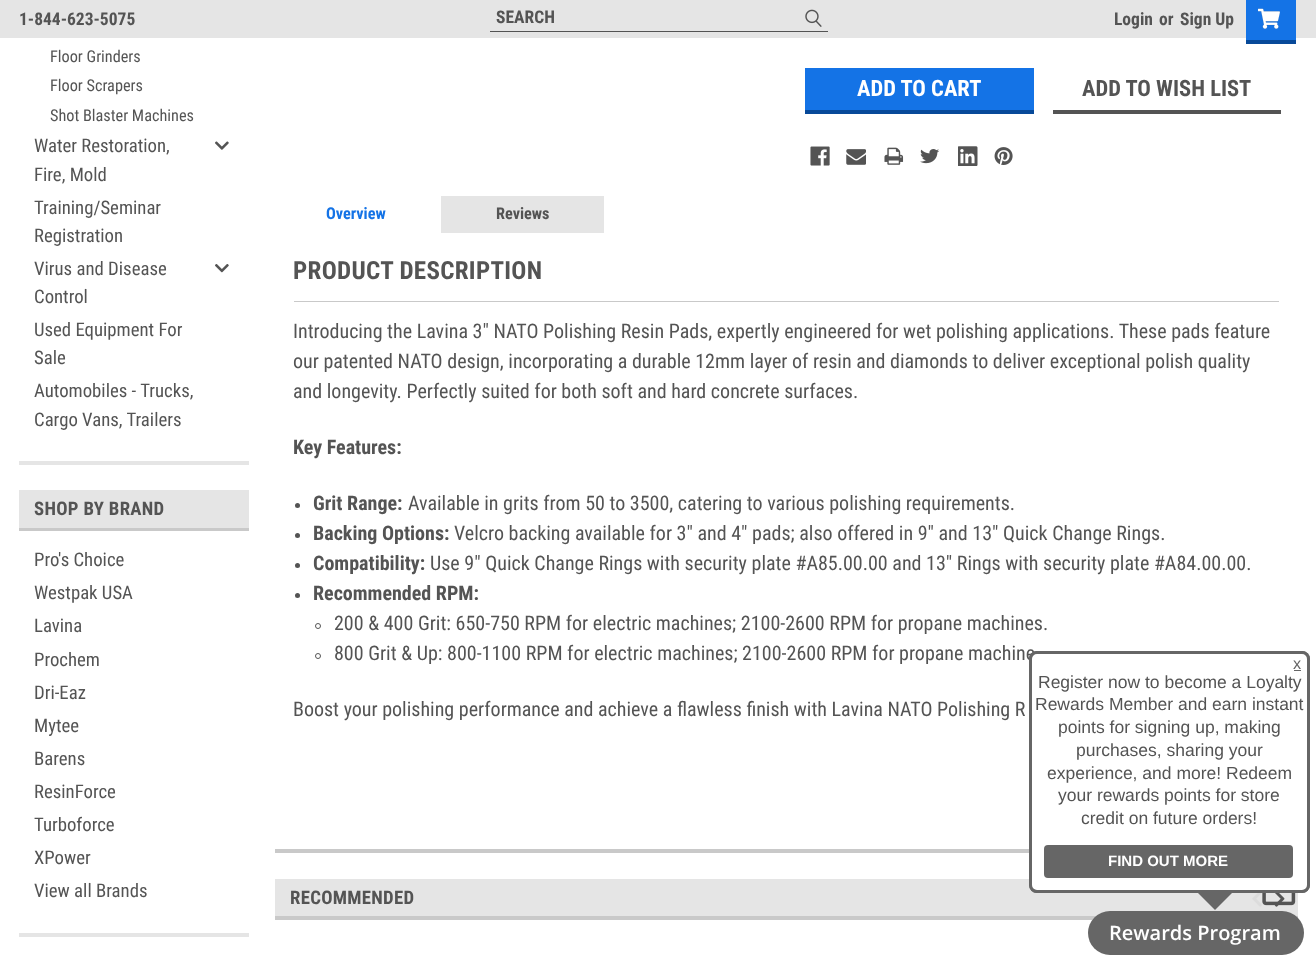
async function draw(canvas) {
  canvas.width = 1316
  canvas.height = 967
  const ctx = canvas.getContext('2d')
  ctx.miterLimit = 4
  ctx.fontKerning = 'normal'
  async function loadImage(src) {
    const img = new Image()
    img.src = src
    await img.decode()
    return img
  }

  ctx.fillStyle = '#fff'
  ctx.fillRect(0, 0, 1316, 967)
  ctx.fillStyle = '#e5e5e5'
  ctx.fillRect(0, 0, 1316, 38)
  ctx.fillStyle = '#545454'
  ctx.fillRect(490, 31, 338, 1)
  ctx.font = 'bold 17.5px Roboto Condensed'
  ctx.fillText('SEARCH', 496, 23)
  ctx.drawImage(await loadImage('image0.png'), 805, 9, 17, 18)
  ctx.fillText('1-844-623-5075', 19, 25)
  ctx.fillText('Login', 1114, 25)
  ctx.fillText('or', 1159, 25)
  ctx.fillText('Sign Up', 1180, 25)
  ctx.fillStyle = '#1473e6'
  ctx.fillRect(1246, 0, 50, 40)
  ctx.fillStyle = '#074999'
  ctx.fillRect(1246, 40, 50, 4)
  ctx.drawImage(await loadImage('image1.png'), 1258, 8, 22, 21)
  ctx.fillStyle = '#e5e5e5'
  ctx.fillRect(19, 461, 230, 4)
  ctx.font = '16.25px Roboto Condensed'
  ctx.fillStyle = '#545454'
  ctx.fillText('Floor Grinders', 50, 62)
  ctx.fillText('Floor Scrapers', 50, 91)
  ctx.fillText('Shot Blaster Machines', 50, 121)
  ctx.font = '18.75px Roboto Condensed'
  ctx.fillText('Water Restoration,', 34, 152)
  ctx.fillText('Fire, Mold', 34, 181)
  ctx.drawImage(await loadImage('image2.png'), 215, 141, 14, 9)
  ctx.fillText('Training/Seminar', 34, 214)
  ctx.fillText('Registration', 34, 242)
  ctx.fillText('Virus and Disease', 34, 275)
  ctx.fillText('Control', 34, 303)
  ctx.drawImage(await loadImage('image3.png'), 215, 264, 14, 9)
  ctx.fillText('Used Equipment For', 34, 336)
  ctx.fillText('Sale', 34, 364)
  ctx.fillText('Automobiles - Trucks,', 34, 397)
  ctx.fillText('Cargo Vans, Trailers', 34, 426)
  ctx.fillStyle = '#e5e5e5'
  ctx.fillRect(19, 933, 230, 4)
  ctx.fillRect(19, 490, 230, 38)
  ctx.fillStyle = '#c9c9c9'
  ctx.fillRect(19, 528, 230, 3)
  ctx.letterSpacing = '0.3px'
  ctx.font = 'bold 18.75px Roboto Condensed'
  ctx.fillStyle = '#545454'
  ctx.fillText('SHOP BY BRAND', 34, 515)
  ctx.letterSpacing = '0px'
  ctx.font = '18.75px Roboto Condensed'
  ctx.fillText('Pro\'s Choice', 34, 566)
  ctx.fillText('Westpak USA', 34, 599)
  ctx.fillText('Lavina', 34, 632)
  ctx.fillText('Prochem', 34, 666)
  ctx.fillText('Dri-Eaz', 34, 699)
  ctx.fillText('Mytee', 34, 732)
  ctx.fillText('Barens', 34, 765)
  ctx.fillText('ResinForce', 34, 798)
  ctx.fillText('Turboforce', 34, 831)
  ctx.fillText('XPower', 34, 864)
  ctx.fillText('View all Brands', 34, 897)
  ctx.fillStyle = '#1473e6'
  ctx.fillRect(805, 68, 229, 42)
  ctx.fillStyle = '#074999'
  ctx.fillRect(805, 110, 229, 4)
  ctx.font = 'bold 22.5px Roboto Condensed'
  ctx.fillStyle = '#fff'
  ctx.fillText('ADD TO CART', 857, 96)
  ctx.fillStyle = '#545454'
  ctx.fillRect(1053, 110, 228, 4)
  ctx.fillText('ADD TO WISH LIST', 1082, 96)
  ctx.drawImage(await loadImage('image4.png'), 810, 146, 20, 20)
  ctx.drawImage(await loadImage('image5.png'), 846, 149, 20, 16)
  ctx.drawImage(await loadImage('image6.png'), 884, 147, 20, 18)
  ctx.drawImage(await loadImage('image7.png'), 920, 149, 20, 15)
  ctx.drawImage(await loadImage('image8.png'), 958, 146, 20, 20)
  ctx.drawImage(await loadImage('image9.png'), 994, 147, 19, 18)
  ctx.font = 'bold 16.25px Roboto Condensed'
  ctx.fillStyle = '#1473e6'
  ctx.fillText('Overview', 326, 219)
  ctx.fillStyle = '#e5e5e5'
  ctx.fillRect(441, 196, 163, 37)
  ctx.fillStyle = '#545454'
  ctx.fillText('Reviews', 496, 219)
  ctx.fillStyle = '#c9c9c9'
  ctx.fillRect(275, 849, 754, 4)
  ctx.fillRect(294, 301, 985, 1)
  ctx.letterSpacing = '0.3px'
  ctx.font = 'bold 25px Roboto Condensed'
  ctx.fillStyle = '#545454'
  ctx.fillText('PRODUCT DESCRIPTION', 293, 279)
  ctx.letterSpacing = '0px'
  ctx.font = '20px Roboto Condensed'
  ctx.fillText('Introducing the Lavina 3" NATO Polishing Resin Pads, expertly engineered for wet polishing applications. These pads feature', 293, 338)
  ctx.fillText('our patented NATO design, incorporating a durable 12mm layer of resin and diamonds to deliver exceptional polish quality', 293, 368)
  ctx.fillText('and longevity. Perfectly suited for both soft and hard concrete surfaces.', 293, 398)
  ctx.font = 'bold 20px Roboto Condensed'
  ctx.fillText('Key Features:', 293, 454)
  ctx.beginPath()
  ctx.arc(297.5, 505.5, 2.5, 0, 2 * Math.PI)
  ctx.fill()
  ctx.fillText('Grit Range:', 313, 510)
  ctx.font = '20px Roboto Condensed'
  ctx.fillText('Available in grits from 50 to 3500, catering to various polishing requirements.', 408, 510)
  ctx.beginPath()
  ctx.arc(297.5, 535.5, 2.5, 0, 2 * Math.PI)
  ctx.fill()
  ctx.font = 'bold 20px Roboto Condensed'
  ctx.fillText('Backing Options:', 313, 540)
  ctx.font = '20px Roboto Condensed'
  ctx.fillText('Velcro backing available for 3" and 4" pads; also offered in 9" and 13" Quick Change Rings.', 454, 540)
  ctx.beginPath()
  ctx.arc(297.5, 565.5, 2.5, 0, 2 * Math.PI)
  ctx.fill()
  ctx.font = 'bold 20px Roboto Condensed'
  ctx.fillText('Compatibility:', 313, 570)
  ctx.font = '20px Roboto Condensed'
  ctx.fillText('Use 9" Quick Change Rings with security plate #A85.00.00 and 13" Rings with security plate #A84.00.00.', 430, 570)
  ctx.beginPath()
  ctx.arc(297.5, 595.5, 2.5, 0, 2 * Math.PI)
  ctx.fill()
  ctx.font = 'bold 20px Roboto Condensed'
  ctx.fillText('Recommended RPM:', 313, 600)
  ctx.beginPath()
  ctx.arc(318, 626, 2.5, 0, 2 * Math.PI)
  ctx.strokeStyle = '#545454'
  ctx.stroke()
  ctx.font = '20px Roboto Condensed'
  ctx.fillText('200 & 400 Grit: 650-750 RPM for electric machines; 2100-2600 RPM for propane machines.', 334, 630)
  ctx.beginPath()
  ctx.arc(318, 656, 2.5, 0, 2 * Math.PI)
  ctx.stroke()
  ctx.fillText('800 Grit & Up: 800-1100 RPM for electric machines; 2100-2600 RPM for propane machine', 334, 660)
  ctx.fillText('Boost your polishing performance and achieve a flawless finish with Lavina NATO Polishing R', 293, 716)
  ctx.fillStyle = '#e5e5e5'
  ctx.fillRect(275, 879, 1023, 37)
  ctx.fillStyle = '#c9c9c9'
  ctx.fillRect(275, 916, 1023, 4)
  ctx.letterSpacing = '0.3px'
  ctx.font = 'bold 18.75px Roboto Condensed'
  ctx.fillStyle = '#545454'
  ctx.fillText('RECOMMENDED', 290, 904)
  ctx.drawImage(await loadImage('image10.png'), 1252, 893, 10, 14)
  ctx.drawImage(await loadImage('image11.png'), 1274, 893, 11, 14)
  ctx.drawImage(await loadImage('image12.png'), 1262, 893, 34, 13)
  ctx.fillStyle = '#666'
  ctx.filter = 'blur(0.5px)'
  ctx.beginPath()
  ctx.roundRect(1029, 651, 281, 242, 8)
  ctx.fill()
  ctx.filter = 'none'
  ctx.fillStyle = '#fff'
  ctx.beginPath()
  ctx.roundRect(1030.5, 652.5, 278, 239, 6.5)
  ctx.fill()
  ctx.strokeStyle = '#666'
  ctx.lineWidth = 3
  ctx.stroke()
  ctx.letterSpacing = '0px'
  ctx.font = '16.25px Liberation Sans'
  ctx.fillStyle = '#666'
  ctx.fillText('x', 1293, 669)
  ctx.fillRect(1294, 670, 7, 1)
  ctx.font = '17.5px Liberation Sans'
  ctx.fillStyle = '#545454'
  ctx.fillText('Register now to become a Loyalty', 1038, 688)
  ctx.fillText('Rewards Member and earn instant', 1035, 710)
  ctx.fillText('points for signing up, making', 1058, 733)
  ctx.fillText('purchases, sharing your', 1076, 756)
  ctx.fillText('experience, and more! Redeem', 1047, 779)
  ctx.fillText('your rewards points for store', 1058, 801)
  ctx.fillText('credit on future orders!', 1081, 824)
  ctx.fillStyle = '#666'
  ctx.beginPath()
  ctx.roundRect(1044, 845, 249, 33, 4)
  ctx.fill()
  ctx.font = 'bold 15px Liberation Sans'
  ctx.fillStyle = '#fff'
  ctx.fillText('FIND OUT MORE', 1108, 866)
  ctx.fillStyle = '#666'
  ctx.beginPath()
  ctx.moveTo(1197.5, 892.5)
  ctx.lineTo(1232.5, 892.5)
  ctx.lineTo(1215, 910)
  ctx.closePath()
  ctx.fill()
  ctx.beginPath()
  ctx.roundRect(1088, 911, 216, 44, 22)
  ctx.fill()
  ctx.font = '600 20px Open Sans'
  ctx.fillStyle = '#fff'
  ctx.fillText('Rewards Program', 1109, 940)
}

draw(document.querySelector('canvas'))
